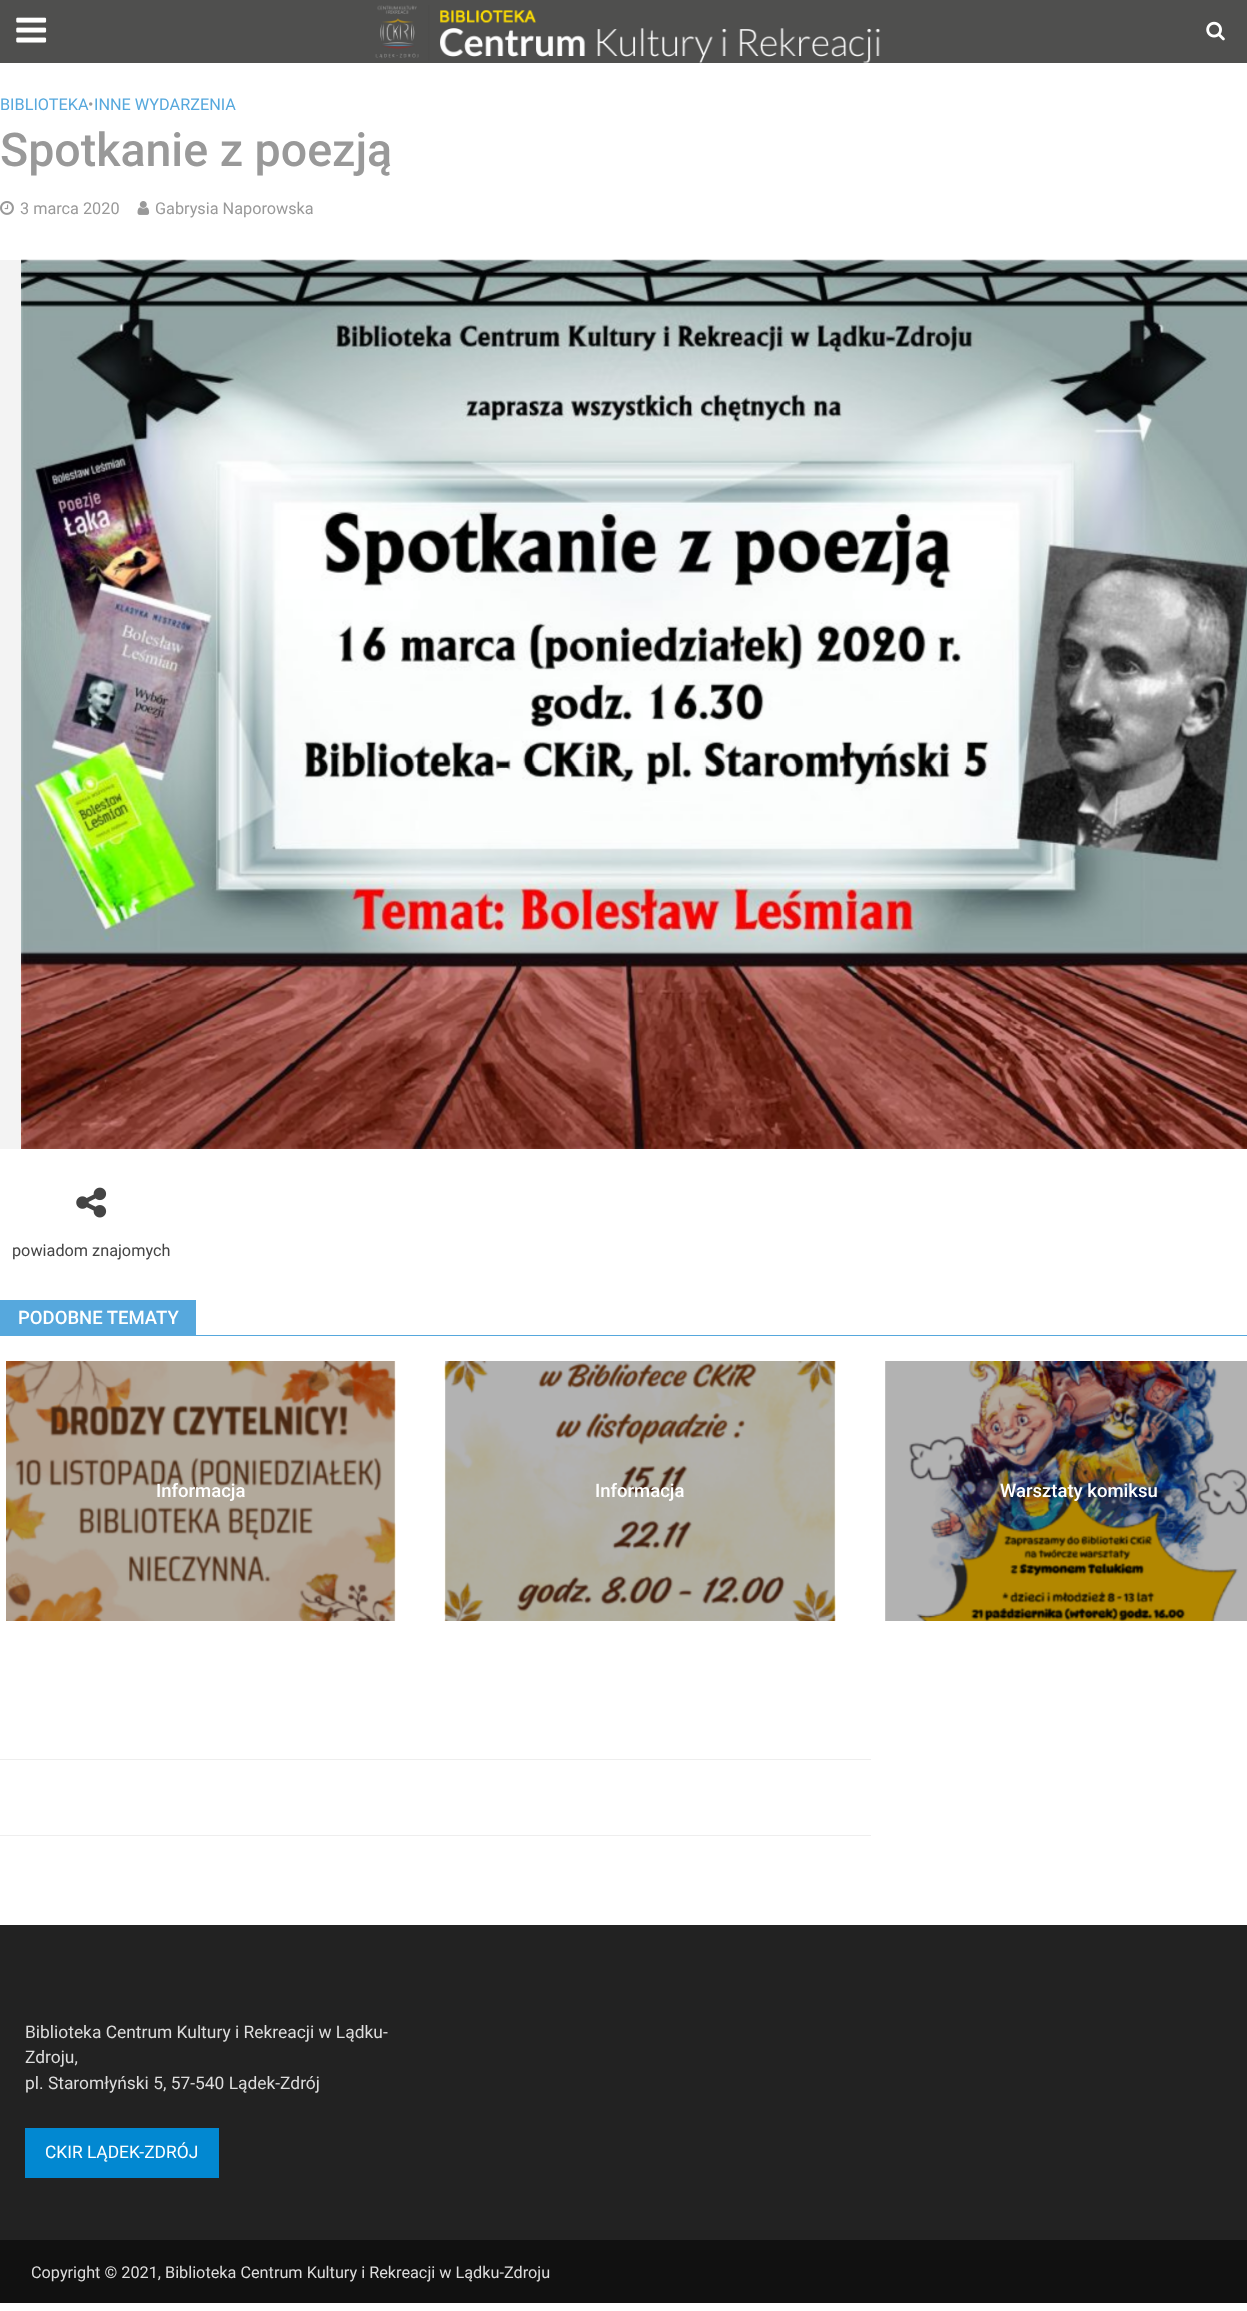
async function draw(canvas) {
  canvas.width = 1247
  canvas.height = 2311
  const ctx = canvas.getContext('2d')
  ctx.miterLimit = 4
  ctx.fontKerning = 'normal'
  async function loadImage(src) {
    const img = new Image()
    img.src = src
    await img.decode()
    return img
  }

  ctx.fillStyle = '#fff'
  ctx.fillRect(0, 0, 1247, 2311)
  ctx.fillStyle = '#4f4f4e'
  ctx.fillRect(0, 0, 1247, 63)
  ctx.drawImage(await loadImage('image0.png'), 16, 17, 31, 26)
  ctx.drawImage(await loadImage('image1.png'), 375, 5, 506, 58)
  ctx.drawImage(await loadImage('image2.png'), 1206, 21, 19, 20)
  ctx.font = '16.25px Roboto'
  ctx.fillStyle = '#56a8dd'
  ctx.fillText('BIBLIOTEKA', 0, 110)
  ctx.fillStyle = '#999'
  ctx.fillText('•', 88, 110)
  ctx.fillStyle = '#56a8dd'
  ctx.fillText('INNE WYDARZENIA', 94, 110)
  ctx.font = '500 46.5px Roboto'
  ctx.fillStyle = '#999'
  ctx.fillText('Spotkanie z poezją', 0, 166)
  ctx.drawImage(await loadImage('image3.png'), 0, 201, 14, 14)
  ctx.font = '16.25px Roboto'
  ctx.fillText('3 marca 2020', 20, 214)
  ctx.drawImage(await loadImage('image4.png'), 137, 201, 13, 14)
  ctx.fillText('Gabrysia Naporowska', 155, 214)
  ctx.fillStyle = '#f3f3f3'
  ctx.fillRect(0, 260, 1247, 889)
  ctx.drawImage(await loadImage('image5.png'), 21, 259, 1226, 890)
  ctx.drawImage(await loadImage('image6.png'), 76, 1187, 31, 31)
  ctx.fillStyle = '#444'
  ctx.fillText('powiadom znajomych', 12, 1256)
  ctx.fillStyle = '#56a8dd'
  ctx.fillRect(0, 1300, 196, 35)
  ctx.font = '500 18.5px Roboto'
  ctx.fillStyle = '#fff'
  ctx.fillText('PODOBNE TEMATY', 18, 1324)
  ctx.fillStyle = '#56a8dd'
  ctx.fillRect(0, 1335, 1247, 1)
  ctx.drawImage(await loadImage('image7.png'), 6, 1361, 390, 260)
  ctx.fillStyle = '#fff'
  ctx.fillText('Informacja', 156, 1497)
  ctx.drawImage(await loadImage('image8.png'), 444, 1361, 392, 260)
  ctx.fillText('Informacja', 595, 1497)
  ctx.drawImage(await loadImage('image9.png'), 885, 1361, 362, 260)
  ctx.fillText('Warsztaty komiksu', 1000, 1497)
  ctx.fillStyle = '#eee'
  ctx.fillRect(0, 1759, 871, 1)
  ctx.fillRect(0, 1835, 871, 1)
  ctx.fillStyle = '#222'
  ctx.fillRect(0, 1925, 1247, 315)
  ctx.font = '17.4px Roboto'
  ctx.fillStyle = '#ddd'
  ctx.fillText('Biblioteka Centrum Kultury i Rekreacji w Lądku-', 25, 2038)
  ctx.fillText('Zdroju,', 25, 2063)
  ctx.fillText('pl. Staromłyński 5, 57-540 Lądek-Zdrój', 25, 2089)
  ctx.fillStyle = '#0288d1'
  ctx.fillRect(25, 2128, 194, 50)
  ctx.fillStyle = '#fff'
  ctx.fillText('CKIR LĄDEK-ZDRÓJ', 45, 2158)
  ctx.fillStyle = '#111'
  ctx.fillRect(0, 2240, 1247, 63)
  ctx.font = '16.25px Roboto'
  ctx.fillStyle = '#ddd'
  ctx.fillText('Copyright © 2021, Biblioteka Centrum Kultury i Rekreacji w Lądku-Zdroju', 31, 2278)
}

draw(document.querySelector('canvas'))
